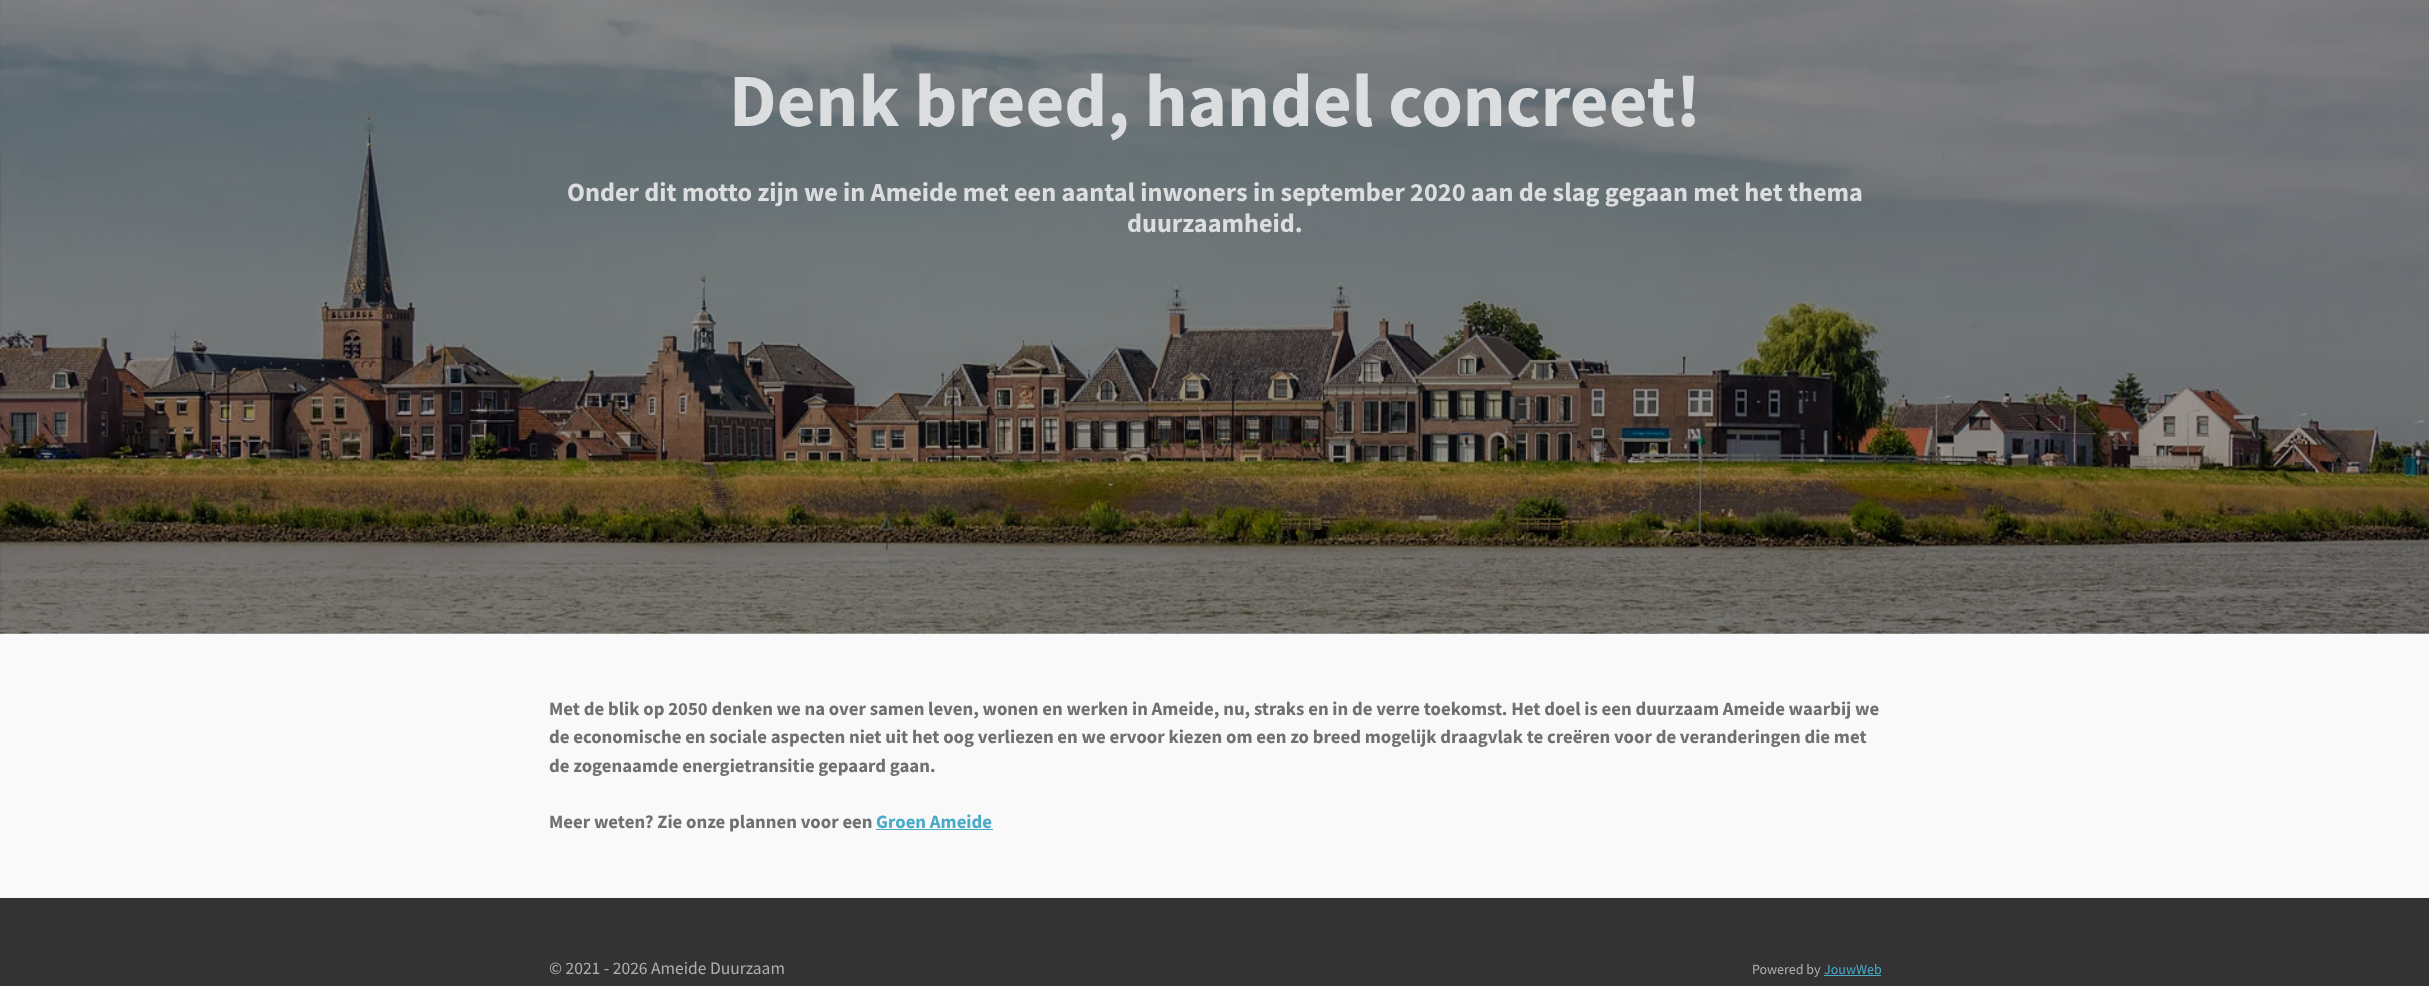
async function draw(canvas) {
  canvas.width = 2429
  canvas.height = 986
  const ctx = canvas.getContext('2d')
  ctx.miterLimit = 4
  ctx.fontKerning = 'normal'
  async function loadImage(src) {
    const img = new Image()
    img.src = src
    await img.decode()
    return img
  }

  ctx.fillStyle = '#fff'
  ctx.fillRect(0, 0, 2429, 986)
  ctx.drawImage(await loadImage('image0.png'), 0, 0, 2429, 634)
  ctx.font = 'bold 75px Source Sans Pro'
  ctx.fillStyle = '#dcddde'
  ctx.fillText('Denk breed, handel concreet!', 729, 126)
  ctx.font = 'bold 26.25px Source Sans Pro'
  ctx.fillText('Onder dit motto zijn we in Ameide met een aantal inwoners in september 2020 aan de slag gegaan met het thema', 567, 201)
  ctx.fillText('duurzaamheid.', 1127, 232)
  ctx.fillStyle = '#f9f9f9'
  ctx.fillRect(0, 634, 2429, 264)
  ctx.font = 'bold 18.75px Source Sans Pro'
  ctx.fillStyle = '#707070'
  ctx.fillText('Met de blik op 2050 denken we na over samen leven, wonen en werken in Ameide, nu, straks en in de verre toekomst. Het doel is een duurzaam Ameide waarbij we', 549, 715)
  ctx.fillText('de economische en sociale aspecten niet uit het oog verliezen en we ervoor kiezen om een zo breed mogelijk draagvlak te creëren voor de veranderingen die met', 549, 743)
  ctx.fillText('de zogenaamde energietransitie gepaard gaan.', 549, 772)
  ctx.fillText('Meer weten? Zie onze plannen voor een', 549, 828)
  ctx.fillStyle = '#4caac9'
  ctx.fillText('Groen Ameide', 876, 828)
  ctx.fillRect(876, 829, 117, 1)
  ctx.fillStyle = '#333'
  ctx.fillRect(0, 898, 2429, 88)
  ctx.font = '17.5px Source Sans Pro'
  ctx.fillStyle = '#b1b0ac'
  ctx.fillText('© 2021 - 2026 Ameide Duurzaam', 549, 974)
  ctx.font = '14px Source Sans Pro'
  ctx.fillText('Powered by', 1752, 974)
  ctx.fillStyle = '#4caac9'
  ctx.fillText('JouwWeb', 1824, 974)
  ctx.fillRect(1824, 975, 57, 1)
}

draw(document.querySelector('canvas'))
